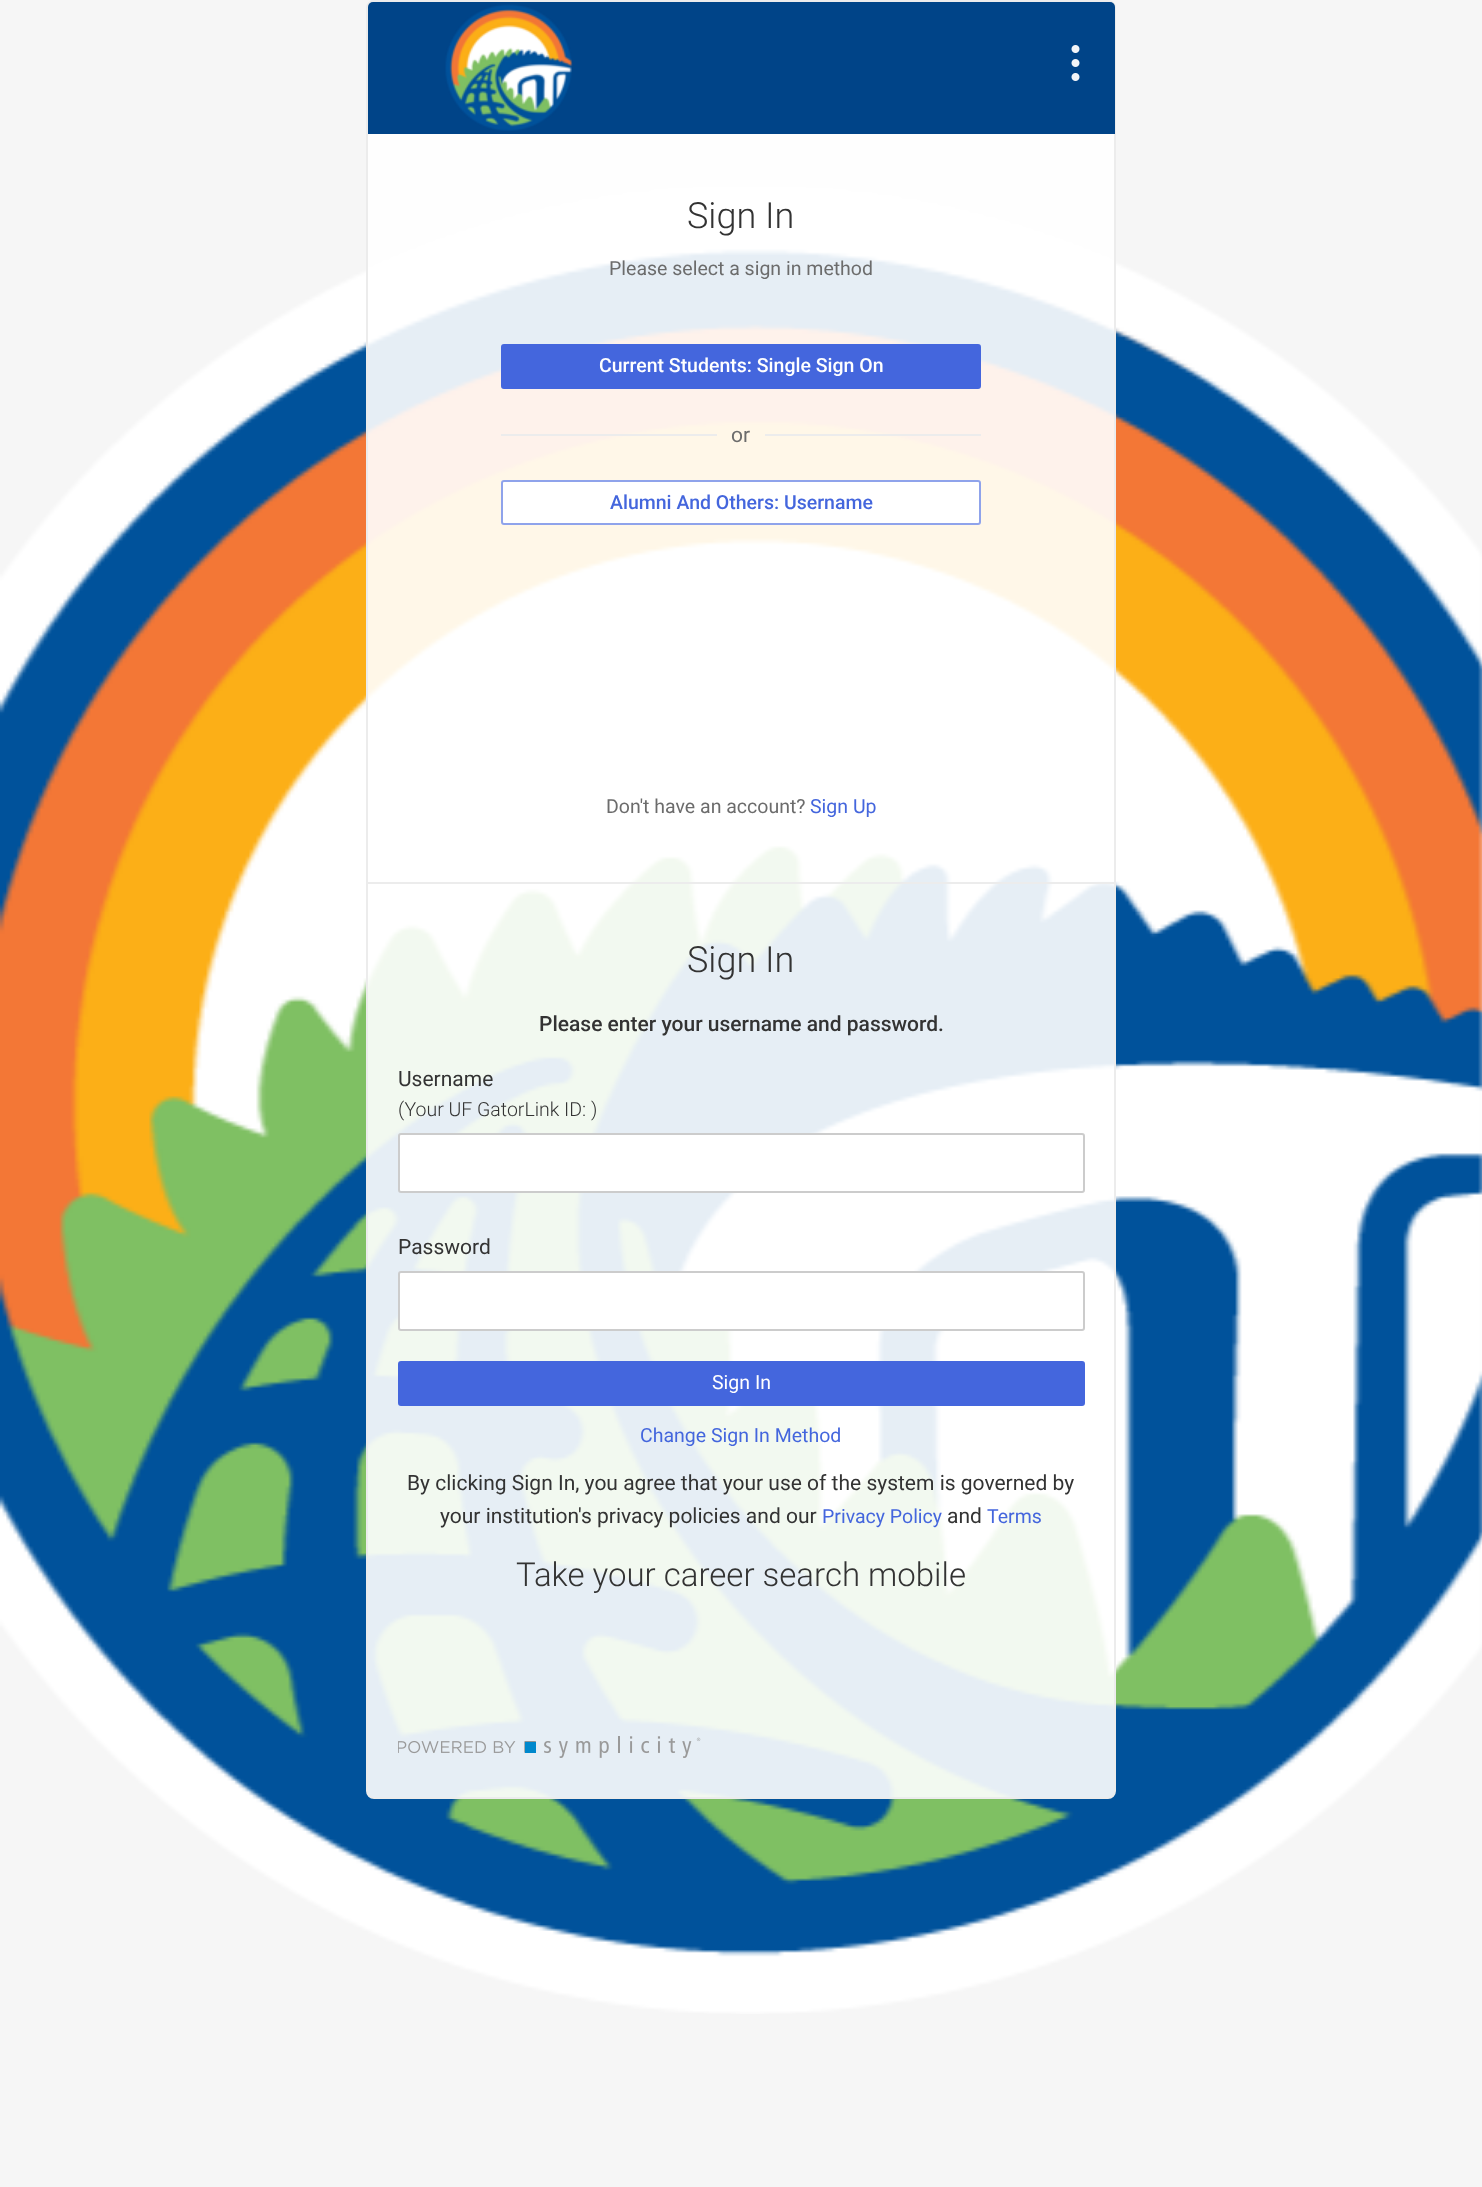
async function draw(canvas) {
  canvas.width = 1482
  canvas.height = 2187
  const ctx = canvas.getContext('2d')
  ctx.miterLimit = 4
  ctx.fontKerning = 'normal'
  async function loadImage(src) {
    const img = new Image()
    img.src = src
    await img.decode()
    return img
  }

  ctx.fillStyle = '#f6f6f6'
  ctx.fillRect(0, 0, 1482, 2187)
  ctx.drawImage(await loadImage('image0.png'), 0, 187, 1482, 1827)
  ctx.fillStyle = '#ffffffe6'
  ctx.beginPath()
  ctx.roundRect(367, 1, 748, 1797, 7)
  ctx.fill()
  ctx.strokeStyle = '#ececec'
  ctx.lineWidth = 2
  ctx.stroke()
  ctx.fillStyle = '#048'
  ctx.beginPath()
  ctx.roundRect(368, 2, 747, 132, [5, 5, 0, 0])
  ctx.fill()
  ctx.drawImage(await loadImage('image1.png'), 445, 4, 128, 127)
  ctx.drawImage(await loadImage('image2.png'), 1071, 45, 9, 36)
  ctx.fillStyle = '#ececec'
  ctx.fillRect(368, 882, 747, 2)
  ctx.font = '300 36px Roboto'
  ctx.fillStyle = '#333'
  ctx.fillText('Sign In', 687, 228)
  ctx.font = '19.5px Roboto'
  ctx.fillStyle = '#6c6c6c'
  ctx.fillText('Please select a sign in method', 609, 275)
  ctx.fillStyle = '#46d'
  ctx.beginPath()
  ctx.roundRect(502, 345, 478, 43, 2)
  ctx.fill()
  ctx.strokeStyle = '#46d'
  ctx.stroke()
  ctx.font = '500 19.5px Roboto'
  ctx.fillStyle = '#fff'
  ctx.fillText('Current Students: Single Sign On', 599, 372)
  ctx.fillStyle = '#ececec'
  ctx.fillRect(501, 434, 216, 2)
  ctx.font = '21px Roboto'
  ctx.fillStyle = '#6c6c6c'
  ctx.fillText('or', 731, 442)
  ctx.fillStyle = '#ececec'
  ctx.fillRect(765, 434, 216, 2)
  ctx.fillStyle = '#fff'
  ctx.beginPath()
  ctx.roundRect(501, 480, 480, 45, 3)
  ctx.fill()
  ctx.beginPath()
  ctx.roundRect(502, 481, 478, 43, 2)
  ctx.strokeStyle = '#4466dd99'
  ctx.stroke()
  ctx.font = '500 19.5px Roboto'
  ctx.fillStyle = '#46d'
  ctx.fillText('Alumni And Others: Username', 610, 509)
  ctx.font = '19.5px Roboto'
  ctx.fillStyle = '#6c6c6c'
  ctx.fillText('Don\'t have an account?', 606, 813)
  ctx.fillStyle = '#46d'
  ctx.fillText('Sign Up', 810, 813)
  ctx.font = '300 36px Roboto'
  ctx.fillStyle = '#333'
  ctx.fillText('Sign In', 687, 972)
  ctx.font = '500 21px Roboto'
  ctx.fillText('Please enter your username and password.', 539, 1031)
  ctx.font = '21px Roboto'
  ctx.fillText('Username', 398, 1086)
  ctx.font = '300 19.5px Roboto'
  ctx.fillText('(Your UF GatorLink ID: )', 398, 1116)
  ctx.fillStyle = '#fff'
  ctx.beginPath()
  ctx.roundRect(399, 1134, 685, 58, 2)
  ctx.fill()
  ctx.strokeStyle = '#ccc'
  ctx.stroke()
  ctx.font = '21px Roboto'
  ctx.fillStyle = '#333'
  ctx.fillText('Password', 398, 1254)
  ctx.fillStyle = '#fff'
  ctx.beginPath()
  ctx.roundRect(399, 1272, 685, 58, 2)
  ctx.fill()
  ctx.stroke()
  ctx.fillStyle = '#46d'
  ctx.beginPath()
  ctx.roundRect(399, 1362, 685, 43, 2)
  ctx.fill()
  ctx.strokeStyle = '#46d'
  ctx.stroke()
  ctx.font = '19.5px Roboto'
  ctx.fillStyle = '#fff'
  ctx.fillText('Sign In', 712, 1389)
  ctx.fillStyle = '#46d'
  ctx.fillText('Change Sign In Method', 640, 1442)
  ctx.font = '21px Roboto'
  ctx.fillStyle = '#333'
  ctx.fillText('By clicking Sign In, you agree that your use of the system is governed by', 407, 1490)
  ctx.fillText('your institution\'s privacy policies and our', 440, 1523)
  ctx.font = '19.5px Roboto'
  ctx.fillStyle = '#46d'
  ctx.fillText('Privacy Policy', 822, 1523)
  ctx.font = '21px Roboto'
  ctx.fillStyle = '#333'
  ctx.fillText('and', 947, 1523)
  ctx.font = '19.5px Roboto'
  ctx.fillStyle = '#46d'
  ctx.fillText('Terms', 987, 1523)
  ctx.font = '300 33px Roboto'
  ctx.fillStyle = '#333'
  ctx.fillText('Take your career search mobile', 516, 1586)
  ctx.drawImage(await loadImage('image3.png'), 398, 1736, 303, 22)
}

draw(document.querySelector('canvas'))
